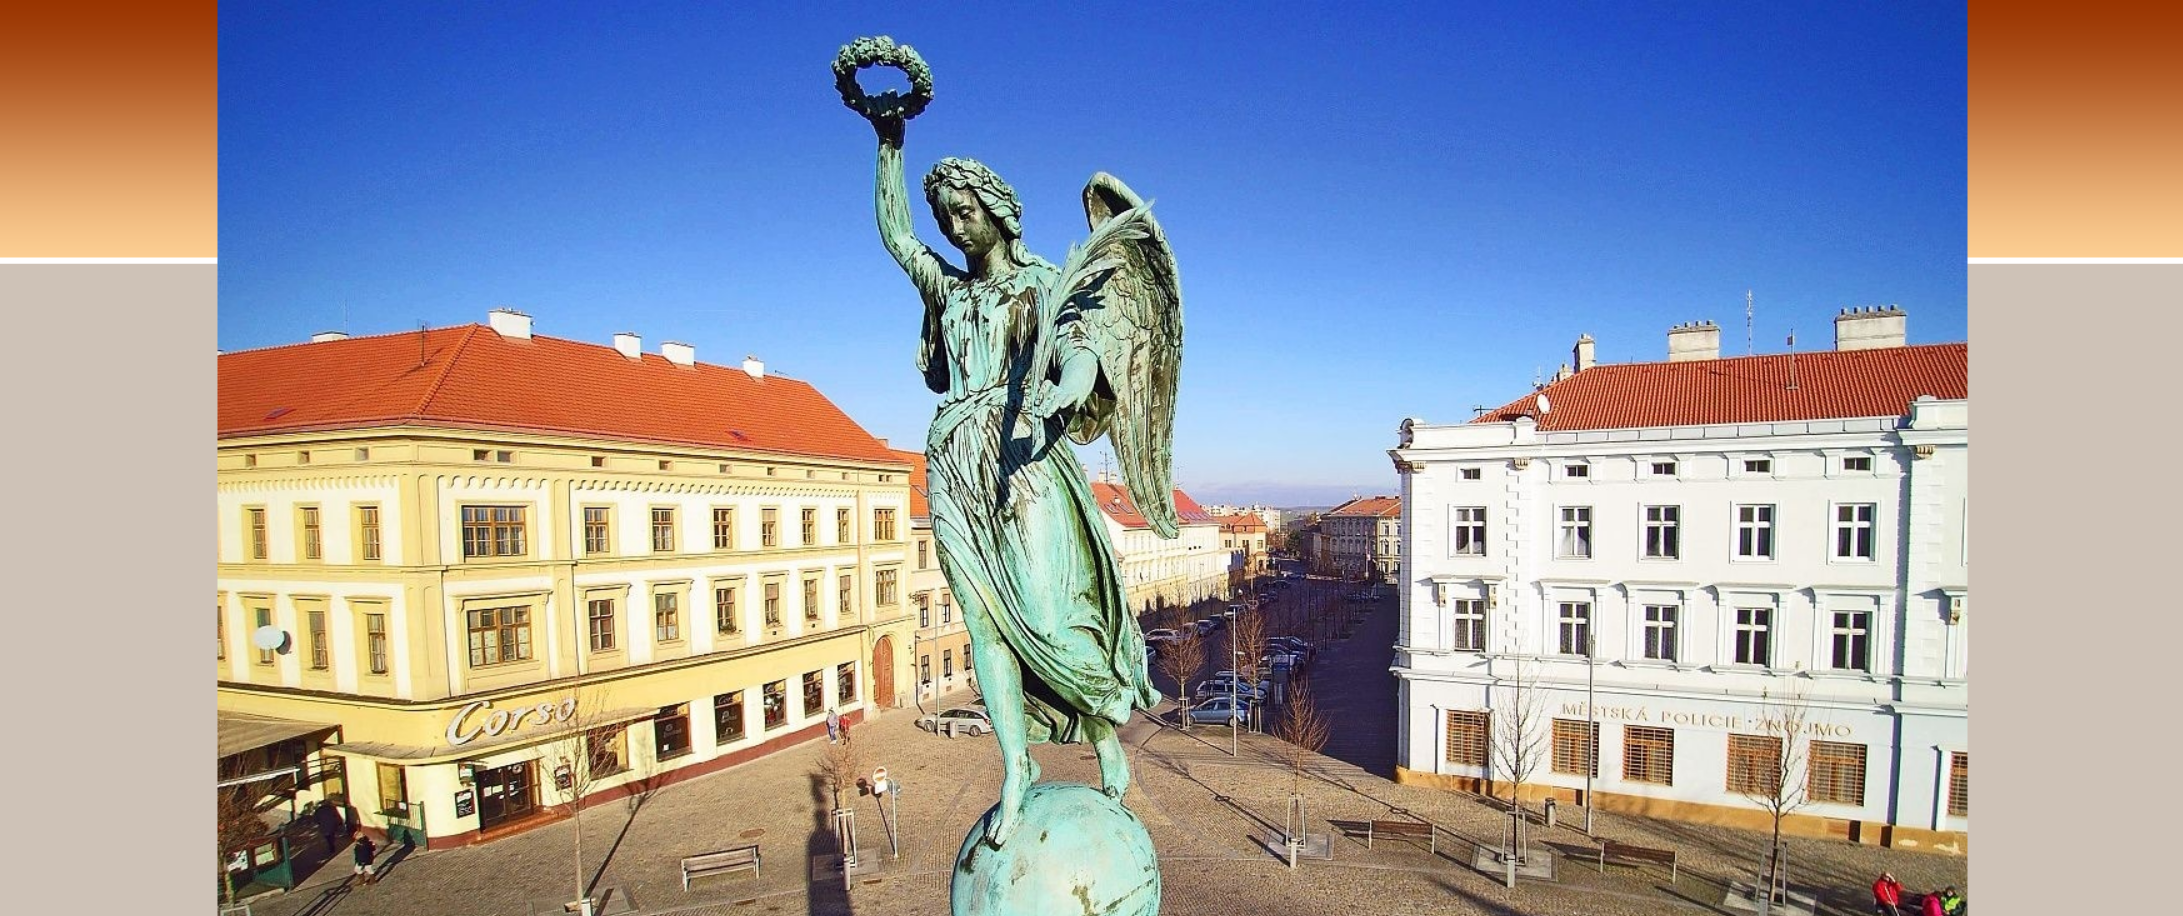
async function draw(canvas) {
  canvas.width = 2183
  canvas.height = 916
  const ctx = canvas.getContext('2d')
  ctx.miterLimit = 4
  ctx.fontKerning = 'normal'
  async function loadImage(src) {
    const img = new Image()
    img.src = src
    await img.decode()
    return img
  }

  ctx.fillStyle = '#cec2b7'
  ctx.fillRect(0, 0, 2183, 916)
  ctx.drawImage(await loadImage('image0.png'), 0, 0, 2183, 264)
  ctx.drawImage(await loadImage('image1.png'), 217, 0, 1751, 916)
}

draw(document.querySelector('canvas'))
